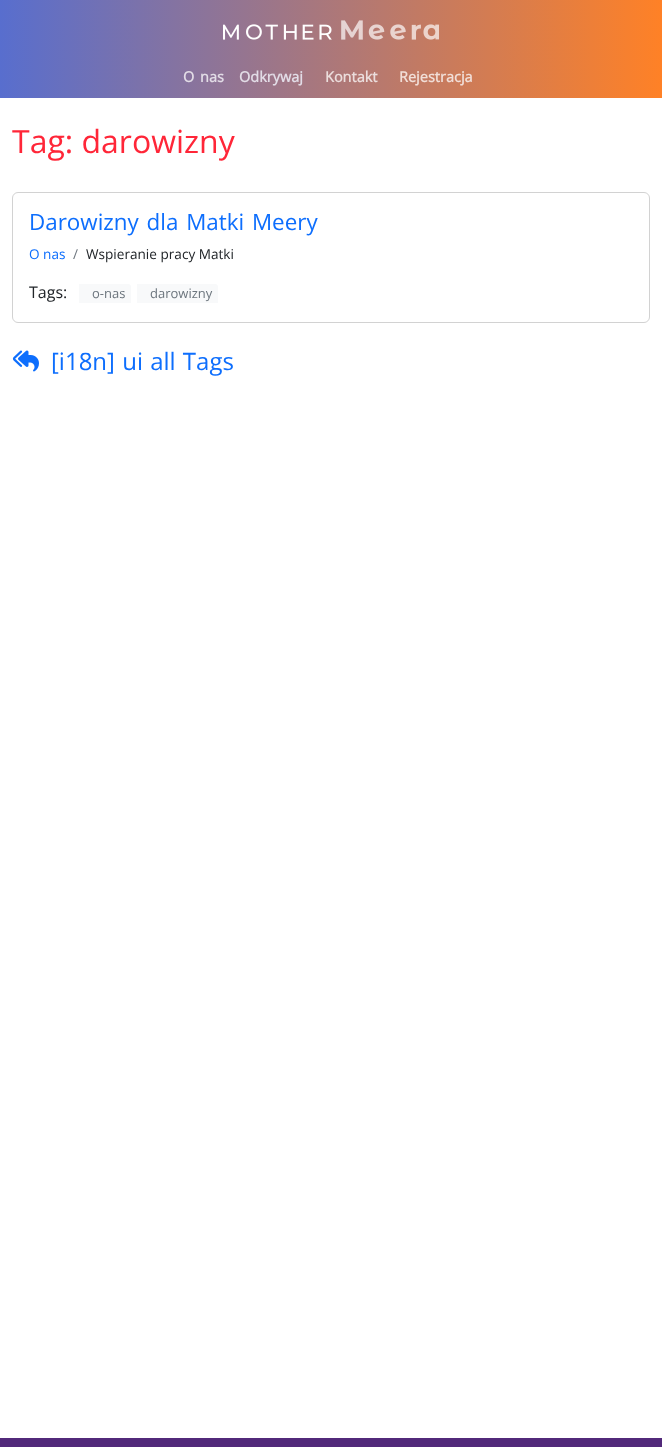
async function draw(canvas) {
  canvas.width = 662
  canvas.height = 1447
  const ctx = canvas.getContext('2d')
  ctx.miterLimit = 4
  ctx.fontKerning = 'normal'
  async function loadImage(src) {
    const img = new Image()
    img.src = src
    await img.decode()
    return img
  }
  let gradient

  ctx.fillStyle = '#fff'
  ctx.fillRect(0, 0, 662, 1447)
  gradient = ctx.createLinearGradient(0, 49, 662, 49)
  gradient.addColorStop(0, '#586ece')
  gradient.addColorStop(1, '#ff8126')
  ctx.fillStyle = gradient
  ctx.fillRect(0, 0, 662, 98)
  ctx.drawImage(await loadImage('image0.png'), 223, 20, 216, 20)
  ctx.wordSpacing = '2px'
  ctx.font = 'bold 14.5px Open Sans'
  ctx.fillStyle = '#e2dce6'
  ctx.fillText('O nas', 183, 82)
  ctx.wordSpacing = '0px'
  ctx.fillText('Odkrywaj', 239, 82)
  ctx.fillStyle = '#ebdddc'
  ctx.fillText('Kontakt', 325, 82)
  ctx.fillStyle = '#f1ded7'
  ctx.fillText('Rejestracja', 399, 82)
  ctx.font = '32px Open Sans'
  ctx.fillStyle = '#ff2638'
  ctx.fillText('Tag: darowizny', 12, 153)
  ctx.beginPath()
  ctx.roundRect(12.5, 192.5, 637, 130, 5.5)
  ctx.strokeStyle = '#d2d2d2'
  ctx.stroke()
  ctx.wordSpacing = '2px'
  ctx.font = '22.4px Open Sans'
  ctx.fillStyle = '#0d6efd'
  ctx.fillText('Darowizny dla Matki Meery', 29, 230)
  ctx.wordSpacing = '0px'
  ctx.font = '13.6px Open Sans'
  ctx.fillText('O nas', 29, 259)
  ctx.fillStyle = '#6c757d'
  ctx.fillText('/', 73, 259)
  ctx.fillStyle = '#212529'
  ctx.fillText('Wspieranie pracy Matki', 86, 259)
  ctx.font = '16px Open Sans'
  ctx.fillText('Tags:', 29, 298)
  ctx.fillStyle = '#f8f9fa'
  ctx.beginPath()
  ctx.roundRect(79, 284, 52, 19, [0, 3, 0, 0])
  ctx.fill()
  ctx.font = '13px Open Sans'
  ctx.fillStyle = '#6c757d'
  ctx.fillText('o-nas', 92, 298)
  ctx.fillStyle = '#f8f9fa'
  ctx.beginPath()
  ctx.roundRect(137, 284, 81, 19, [0, 3, 0, 0])
  ctx.fill()
  ctx.fillStyle = '#6c757d'
  ctx.fillText('darowizny', 150, 298)
  ctx.drawImage(await loadImage('image1.png'), 12, 350, 27, 22)
  ctx.wordSpacing = '1px'
  ctx.font = '24px Open Sans'
  ctx.fillStyle = '#0d6efd'
  ctx.fillText('[i18n] ui all Tags', 51, 370)
  ctx.fillStyle = '#52297a'
  ctx.fillRect(0, 1438, 662, 9)
}

draw(document.querySelector('canvas'))
